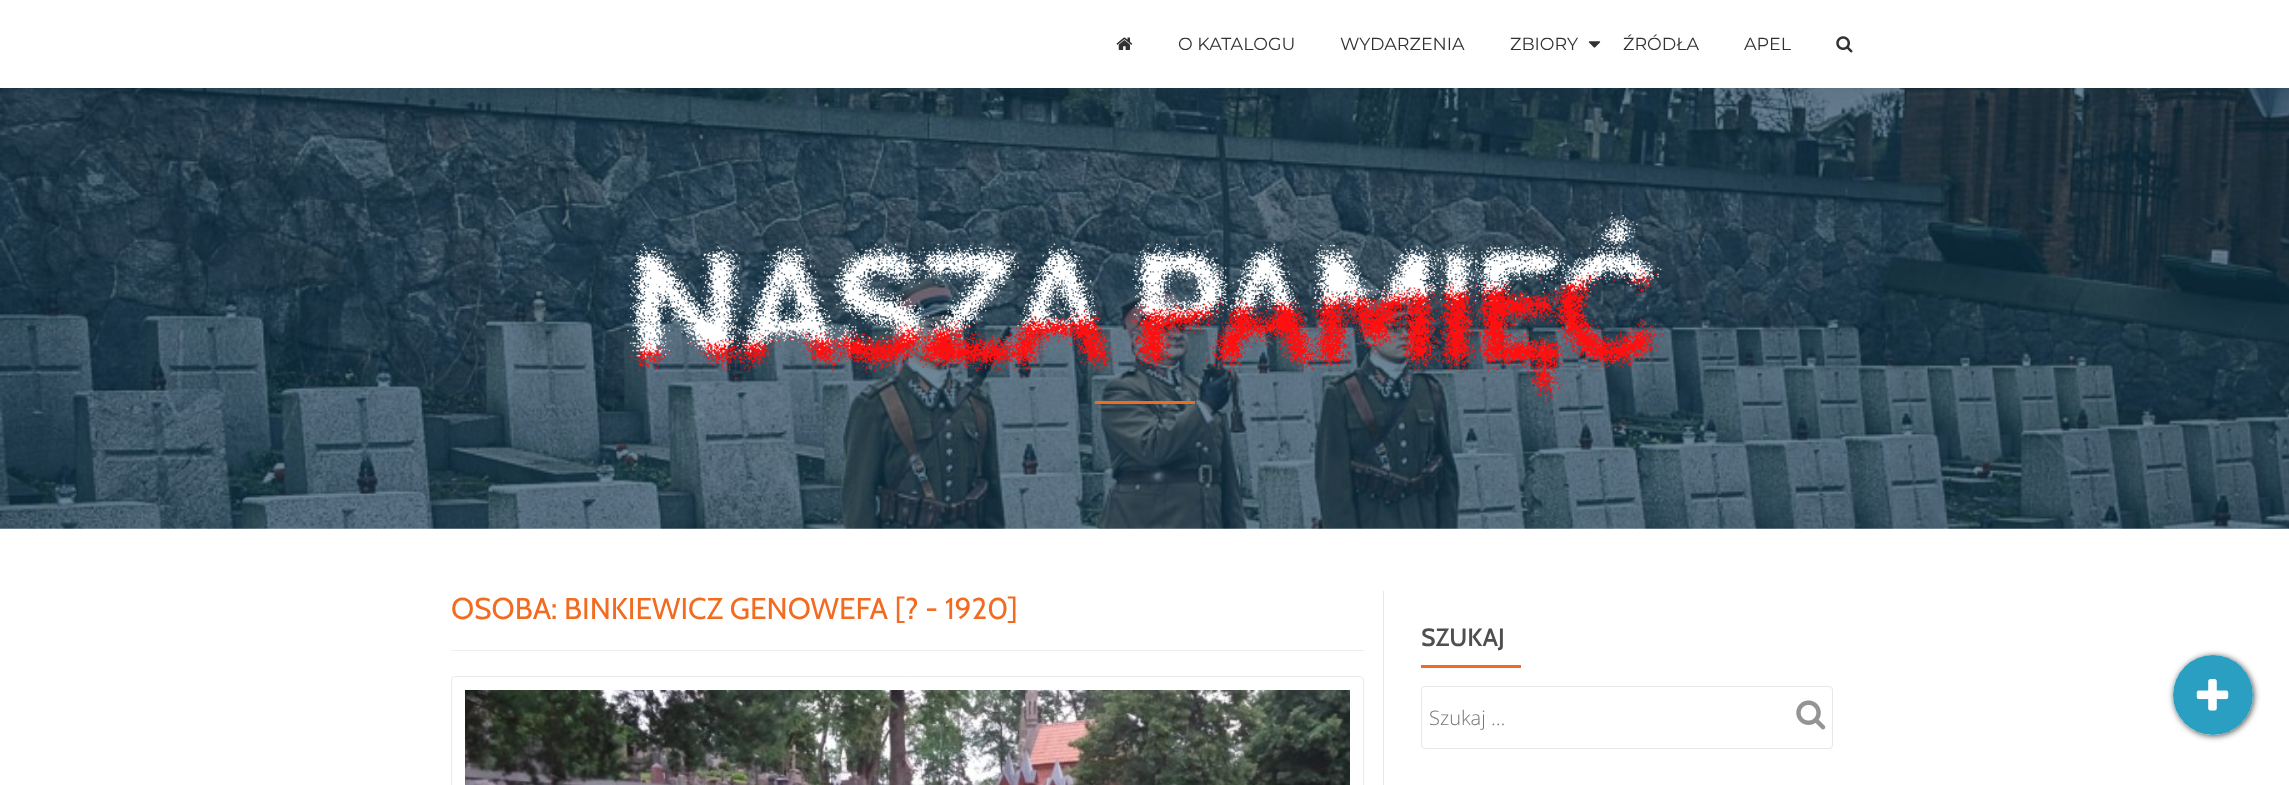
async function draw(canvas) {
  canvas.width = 2289
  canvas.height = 785
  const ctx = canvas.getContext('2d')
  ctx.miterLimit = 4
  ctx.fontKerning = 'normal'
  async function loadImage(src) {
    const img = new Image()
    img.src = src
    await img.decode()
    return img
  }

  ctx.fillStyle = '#fff'
  ctx.fillRect(0, 0, 2289, 785)
  ctx.drawImage(await loadImage('image3.png'), 0, 88, 2289, 441)
  ctx.fillStyle = '#32323214'
  ctx.filter = 'blur(5px)'
  ctx.beginPath()
  ctx.rect(0, 3, 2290, 87)
  ctx.fill()
  ctx.filter = 'none'
  ctx.fillStyle = '#fff'
  ctx.fillRect(0, 0, 2289, 88)
  ctx.drawImage(await loadImage('image0.png'), 1116, 37, 17, 13)
  ctx.font = '17.5px Montserrat'
  ctx.fillStyle = '#313131'
  ctx.fillText('O KATALOGU', 1178, 50)
  ctx.fillText('WYDARZENIA', 1340, 50)
  ctx.fillText('ZBIORY', 1510, 50)
  ctx.drawImage(await loadImage('image1.png'), 1588, 41, 13, 7)
  ctx.fillText('ŹRÓDŁA', 1623, 50)
  ctx.fillText('APEL', 1744, 50)
  ctx.drawImage(await loadImage('image2.png'), 1836, 36, 17, 17)
  ctx.fillStyle = '#f16c20'
  ctx.fillRect(1095, 401, 100, 3)
  ctx.drawImage(await loadImage('image4.png'), 627, 212, 1037, 190)
  ctx.fillStyle = '#eee'
  ctx.fillRect(451, 650, 913, 1)
  ctx.font = '30px Cabin'
  ctx.fillStyle = '#f16c20'
  ctx.fillText('OSOBA: BINKIEWICZ GENOWEFA [? - 1920]', 451, 619)
  ctx.beginPath()
  ctx.roundRect(451.5, 676.5, 912, 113, 3.5)
  ctx.strokeStyle = '#eaeaea'
  ctx.stroke()
  ctx.drawImage(await loadImage('image5.png'), 465, 690, 885, 95)
  ctx.fillStyle = '#e7e7e7'
  ctx.fillRect(1383, 591, 1, 194)
  ctx.font = '600 25px Cabin'
  ctx.fillStyle = '#4f4f4f'
  ctx.fillText('SZUKAJ', 1421, 646)
  ctx.fillStyle = '#f16c20'
  ctx.fillRect(1421, 665, 100, 3)
  ctx.beginPath()
  ctx.roundRect(1421.5, 686.5, 411, 62, 3.5)
  ctx.strokeStyle = '#e7e7e7'
  ctx.stroke()
  ctx.font = '300 20px Open Sans'
  ctx.fillStyle = '#757575'
  ctx.fillText('Szukaj …', 1429, 725)
  ctx.drawImage(await loadImage('image6.png'), 1796, 700, 30, 30)
  ctx.save()
  ctx.beginPath()
  ctx.moveTo(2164, 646)
  ctx.lineTo(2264, 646)
  ctx.lineTo(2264, 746)
  ctx.lineTo(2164, 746)
  ctx.closePath()
  ctx.moveTo(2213, 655)
  ctx.bezierCurveTo(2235, 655, 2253, 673, 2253, 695)
  ctx.bezierCurveTo(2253, 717, 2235, 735, 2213, 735)
  ctx.bezierCurveTo(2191, 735, 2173, 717, 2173, 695)
  ctx.bezierCurveTo(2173, 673, 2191, 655, 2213, 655)
  ctx.closePath()
  ctx.clip('evenodd')
  ctx.fillStyle = '#000000b3'
  ctx.filter = 'blur(3px)'
  ctx.beginPath()
  ctx.roundRect(2174, 656, 80, 80, 40)
  ctx.fill()
  ctx.filter = 'none'
  ctx.restore()
  ctx.fillStyle = '#1395bae6'
  ctx.beginPath()
  ctx.arc(2213, 695, 40, 0, 2 * Math.PI)
  ctx.fill()
  ctx.drawImage(await loadImage('image7.png'), 2196, 679, 33, 32)
}

draw(document.querySelector('canvas'))
